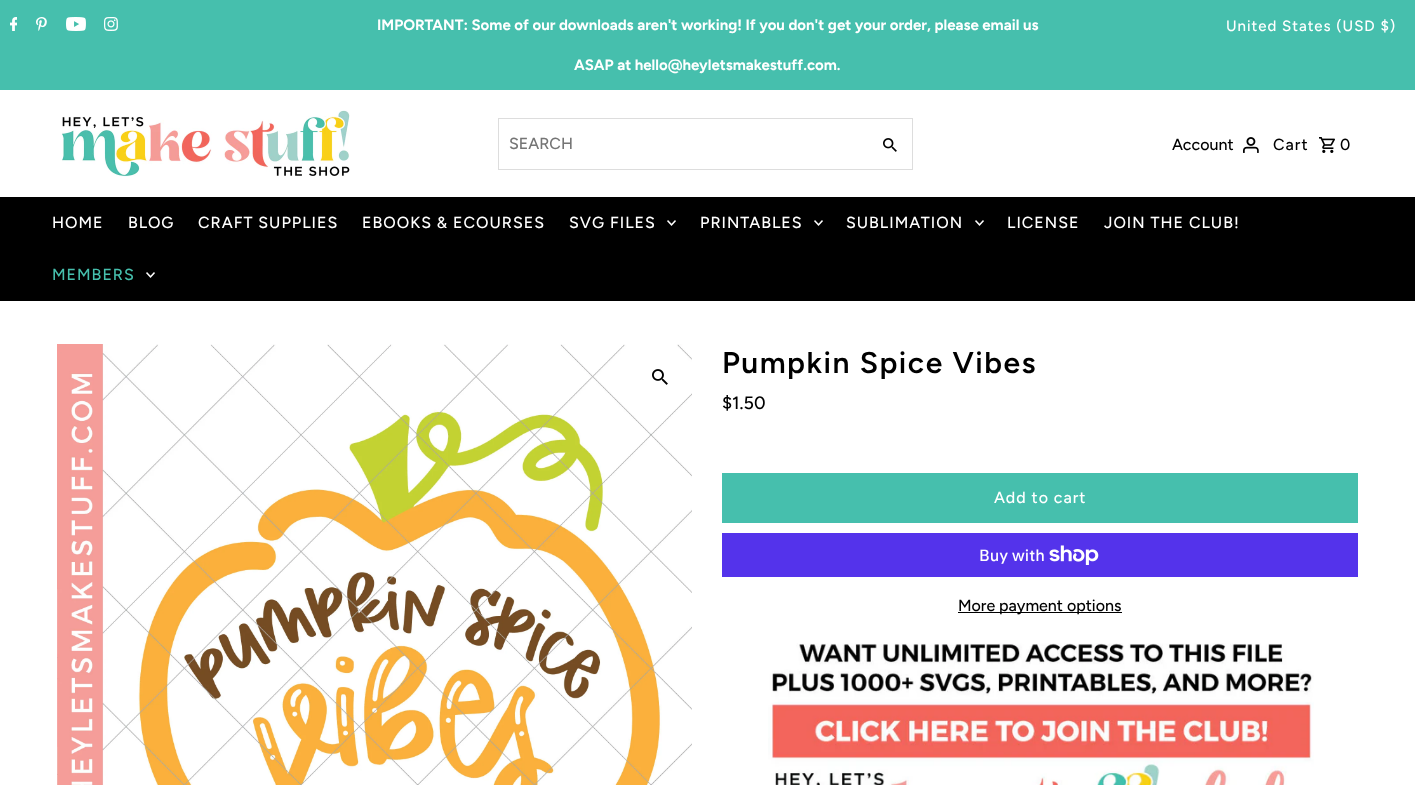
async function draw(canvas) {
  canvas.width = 1415
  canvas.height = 785
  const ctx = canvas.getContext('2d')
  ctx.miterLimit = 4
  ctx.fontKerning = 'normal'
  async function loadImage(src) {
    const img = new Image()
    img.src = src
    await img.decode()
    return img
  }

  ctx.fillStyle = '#fff'
  ctx.fillRect(0, 0, 1415, 785)
  ctx.fillStyle = '#46bfad'
  ctx.fillRect(0, 0, 1415, 90)
  ctx.drawImage(await loadImage('image0.png'), 10, 17, 7, 14)
  ctx.drawImage(await loadImage('image1.png'), 36, 17, 11, 14)
  ctx.drawImage(await loadImage('image2.png'), 66, 17, 20, 14)
  ctx.drawImage(await loadImage('image3.png'), 104, 17, 14, 14)
  ctx.font = 'bold 15px Figtree'
  ctx.fillStyle = '#fff'
  ctx.fillText('IMPORTANT: Some of our downloads aren\'t working! If you don\'t get your order, please email us', 377, 30)
  ctx.fillText('ASAP at hello@heyletsmakestuff.com.', 574, 70)
  ctx.letterSpacing = '1px'
  ctx.font = '500 15px Figtree'
  ctx.fillText('United States (USD $)', 1226, 31)
  ctx.drawImage(await loadImage('image4.png'), 60, 110, 290, 67)
  ctx.strokeStyle = '#ddd'
  ctx.strokeRect(498.5, 118.5, 414, 51)
  ctx.letterSpacing = '0px'
  ctx.font = '500 16px Figtree'
  ctx.fillStyle = '#757575'
  ctx.fillText('SEARCH', 509, 149)
  ctx.drawImage(await loadImage('image5.png'), 883, 138, 14, 14)
  ctx.fillStyle = '#000'
  ctx.fillText('Account', 1172, 150)
  ctx.drawImage(await loadImage('image6.png'), 1243, 137, 16, 16)
  ctx.letterSpacing = '1px'
  ctx.fillText('Cart', 1273, 150)
  ctx.drawImage(await loadImage('image7.png'), 1319, 137, 16, 16)
  ctx.fillText('0', 1340, 150)
  ctx.fillRect(0, 197, 1415, 104)
  ctx.fillStyle = '#fff'
  ctx.fillText('HOME', 52, 228)
  ctx.fillText('BLOG', 128, 228)
  ctx.fillText('CRAFT SUPPLIES', 198, 228)
  ctx.fillText('EBOOKS & ECOURSES', 362, 228)
  ctx.fillText('SVG FILES', 569, 228)
  ctx.drawImage(await loadImage('image8.png'), 667, 220, 9, 6)
  ctx.fillText('PRINTABLES', 700, 228)
  ctx.drawImage(await loadImage('image8.png'), 814, 220, 9, 6)
  ctx.fillText('SUBLIMATION', 846, 228)
  ctx.drawImage(await loadImage('image8.png'), 975, 220, 9, 6)
  ctx.fillText('LICENSE', 1007, 228)
  ctx.fillText('JOIN THE CLUB!', 1104, 228)
  ctx.fillStyle = '#46bfad'
  ctx.fillText('MEMBERS', 52, 280)
  ctx.drawImage(await loadImage('image8.png'), 146, 272, 9, 6)
  ctx.drawImage(await loadImage('image9.png'), 57, 344, 635, 441)
  ctx.drawImage(await loadImage('image10.png'), 652, 369, 16, 16)
  ctx.letterSpacing = '1.5px'
  ctx.font = '600 30px Figtree'
  ctx.fillStyle = '#000'
  ctx.fillText('Pumpkin Spice Vibes', 722, 373)
  ctx.letterSpacing = '0px'
  ctx.font = '500 18px Figtree'
  ctx.fillText('$1.50', 722, 409)
  ctx.fillStyle = '#46bfad'
  ctx.fillRect(722, 473, 636, 50)
  ctx.letterSpacing = '1px'
  ctx.font = '500 16px Figtree'
  ctx.fillStyle = '#fff'
  ctx.fillText('Add to cart', 994, 503)
  ctx.fillStyle = '#5433eb'
  ctx.fillRect(722, 533, 636, 44)
  ctx.letterSpacing = '0px'
  ctx.font = '500 16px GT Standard'
  ctx.fillStyle = '#fff'
  ctx.fillText('Buy with', 979, 561)
  ctx.drawImage(await loadImage('image11.png'), 1049, 545, 50, 20)
  ctx.fillStyle = '#000'
  ctx.fillRect(958, 612, 164, 1)
  ctx.font = '500 16px Figtree'
  ctx.fillText('More payment options', 958, 611)
  ctx.drawImage(await loadImage('image12.png'), 768, 643, 546, 142)
}

draw(document.querySelector('canvas'))
